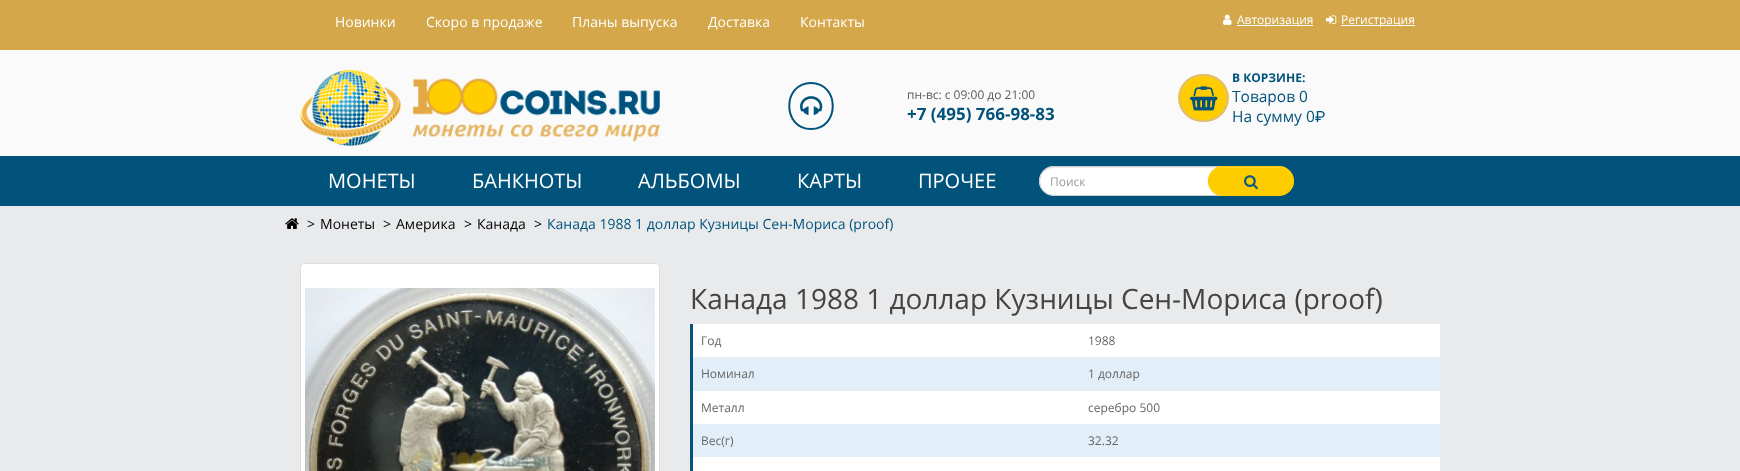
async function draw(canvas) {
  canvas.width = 1740
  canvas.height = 471
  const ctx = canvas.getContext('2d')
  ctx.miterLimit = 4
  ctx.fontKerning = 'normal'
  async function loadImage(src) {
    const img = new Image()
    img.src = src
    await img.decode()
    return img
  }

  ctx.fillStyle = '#e8eaec'
  ctx.fillRect(0, 0, 1740, 471)
  ctx.fillStyle = '#d3a74a'
  ctx.fillRect(0, 0, 1740, 50)
  ctx.font = '14px Open Sans'
  ctx.fillStyle = '#fff'
  ctx.fillText('Hовинки', 335, 27)
  ctx.fillText('Скоро в продаже', 426, 27)
  ctx.fillText('Планы выпуска', 572, 27)
  ctx.fillText('Доставка', 708, 27)
  ctx.fillText('Контакты', 800, 27)
  ctx.drawImage(await loadImage('image0.png'), 1223, 14, 9, 11)
  ctx.fillRect(1237, 25, 76, 1)
  ctx.font = '12px Open Sans'
  ctx.fillText('Авторизация', 1237, 24)
  ctx.drawImage(await loadImage('image1.png'), 1326, 15, 11, 9)
  ctx.fillRect(1341, 25, 74, 1)
  ctx.fillText('Регистрация', 1341, 24)
  ctx.fillStyle = '#fafafa'
  ctx.fillRect(0, 50, 1740, 106)
  ctx.drawImage(await loadImage('image2.png'), 300, 70, 360, 76)
  ctx.beginPath()
  ctx.moveTo(811, 83)
  ctx.bezierCurveTo(840, 83, 840, 129, 811, 129)
  ctx.bezierCurveTo(782, 129, 782, 83, 811, 83)
  ctx.closePath()
  ctx.strokeStyle = '#02537b'
  ctx.lineWidth = 2
  ctx.stroke()
  ctx.drawImage(await loadImage('image3.png'), 800, 96, 23, 19)
  ctx.fillStyle = '#5a5a5a'
  ctx.fillText('пн-вс: с 09:00 до 21:00', 907, 99)
  ctx.font = 'bold 17px Open Sans'
  ctx.fillStyle = '#02537b'
  ctx.fillText('+7 (495) 766-98-83', 907, 120)
  ctx.fillStyle = '#fc0'
  ctx.beginPath()
  ctx.ellipse(1203.5, 98, 25.5, 24, 0, 0, 2 * Math.PI)
  ctx.fill()
  ctx.beginPath()
  ctx.moveTo(1203.5, 75)
  ctx.bezierCurveTo(1235.5, 75, 1235.5, 121, 1203.5, 121)
  ctx.bezierCurveTo(1171.5, 121, 1171.5, 75, 1203.5, 75)
  ctx.closePath()
  ctx.strokeStyle = '#debe79'
  ctx.stroke()
  ctx.drawImage(await loadImage('image4.png'), 1190, 86, 28, 25)
  ctx.font = 'bold 12px Open Sans'
  ctx.fillStyle = '#02537b'
  ctx.fillText('В КОРЗИНЕ:', 1232, 82)
  ctx.font = '15.5px Open Sans'
  ctx.fillText('Товаров 0', 1232, 102)
  ctx.fillText('На сумму 0', 1232, 122)
  ctx.font = '15.5px Roboto'
  ctx.fillText('₽', 1315, 122)
  ctx.fillRect(0, 156, 1740, 50)
  ctx.font = '20px Open Sans'
  ctx.fillStyle = '#fff'
  ctx.fillText('МОНЕТЫ', 328, 188)
  ctx.fillText('БАНКНОТЫ', 472, 188)
  ctx.fillText('АЛЬБОМЫ', 638, 188)
  ctx.fillText('КАРТЫ', 797, 188)
  ctx.fillText('ПРОЧЕЕ', 918, 188)
  ctx.beginPath()
  ctx.roundRect(1039, 166, 184, 30, [15, 0, 0, 15])
  ctx.fill()
  ctx.fillStyle = '#ececec'
  ctx.beginPath()
  ctx.moveTo(1054, 168)
  ctx.lineTo(1222, 168)
  ctx.lineTo(1222, 167)
  ctx.lineTo(1082, 167)
  ctx.bezierCurveTo(1072, 167, 1039, 160, 1040, 181)
  ctx.bezierCurveTo(1040, 174, 1046, 168, 1054, 168)
  ctx.closePath()
  ctx.fill()
  ctx.beginPath()
  ctx.roundRect(1039.5, 166.5, 183, 29, [14.5, 0, 0, 14.5])
  ctx.strokeStyle = '#ccc'
  ctx.lineWidth = 1
  ctx.stroke()
  ctx.font = '12px Open Sans'
  ctx.fillStyle = '#999'
  ctx.fillText('Поиск', 1050, 186)
  ctx.fillStyle = '#0000000d'
  ctx.filter = 'blur(1px)'
  ctx.beginPath()
  ctx.roundRect(1208, 167, 86, 30, 15)
  ctx.fill()
  ctx.filter = 'none'
  ctx.fillStyle = '#fc0'
  ctx.beginPath()
  ctx.roundRect(1208, 166, 86, 30, 15)
  ctx.fill()
  ctx.fillStyle = '#ffd633'
  ctx.beginPath()
  ctx.moveTo(1223, 168)
  ctx.lineTo(1279, 168)
  ctx.bezierCurveTo(1287, 168, 1293, 174, 1293, 181)
  ctx.bezierCurveTo(1293, 175, 1288, 169, 1282, 167)
  ctx.lineTo(1220, 167)
  ctx.bezierCurveTo(1214, 169, 1209, 175, 1209, 181)
  ctx.bezierCurveTo(1209, 174, 1215, 168, 1223, 168)
  ctx.closePath()
  ctx.fill()
  ctx.beginPath()
  ctx.roundRect(1208.5, 166.5, 85, 29, 14.5)
  ctx.strokeStyle = '#fc0'
  ctx.stroke()
  ctx.drawImage(await loadImage('image5.png'), 1244, 175, 14, 15)
  ctx.drawImage(await loadImage('image6.png'), 285, 218, 14, 11)
  ctx.font = '14px Open Sans'
  ctx.fillStyle = '#000'
  ctx.fillText('>', 307, 229)
  ctx.fillText('Монеты', 320, 229)
  ctx.fillText('>', 383, 229)
  ctx.fillText('Америка', 396, 229)
  ctx.fillText('>', 464, 229)
  ctx.fillText('Канада', 477, 229)
  ctx.fillText('>', 534, 229)
  ctx.fillStyle = '#02537b'
  ctx.fillText('Канада 1988 1 доллар Кузницы Сен-Мориса (proof)', 547, 229)
  ctx.fillStyle = '#fff'
  ctx.beginPath()
  ctx.roundRect(300.5, 263.5, 359, 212, 3.5)
  ctx.fill()
  ctx.strokeStyle = '#ddd'
  ctx.stroke()
  ctx.drawImage(await loadImage('image7.png'), 305, 286, 350, 185)
  ctx.font = '28px Open Sans'
  ctx.fillStyle = '#444'
  ctx.fillText('Канада 1988 1 доллар Кузницы Сен-Мориса (proof)', 690, 309)
  ctx.fillStyle = '#07547a'
  ctx.fillRect(690, 324, 3, 147)
  ctx.fillStyle = '#fff'
  ctx.fillRect(693, 324, 747, 33)
  ctx.font = '12px Open Sans'
  ctx.fillStyle = '#666'
  ctx.fillText('Год', 701, 345)
  ctx.fillText('1988', 1088, 345)
  ctx.fillStyle = '#e3eff8'
  ctx.fillRect(693, 357, 747, 34)
  ctx.fillStyle = '#666'
  ctx.fillText('Номинал', 701, 378)
  ctx.fillText('1 доллар', 1088, 378)
  ctx.fillStyle = '#fff'
  ctx.fillRect(693, 391, 747, 33)
  ctx.fillStyle = '#666'
  ctx.fillText('Металл', 701, 412)
  ctx.fillText('серебро 500', 1088, 412)
  ctx.fillStyle = '#e3eff8'
  ctx.fillRect(693, 424, 747, 33)
  ctx.fillStyle = '#666'
  ctx.fillText('Вес(г)', 701, 445)
  ctx.fillText('32.32', 1088, 445)
  ctx.fillStyle = '#fff'
  ctx.fillRect(693, 457, 747, 14)
}

draw(document.querySelector('canvas'))
